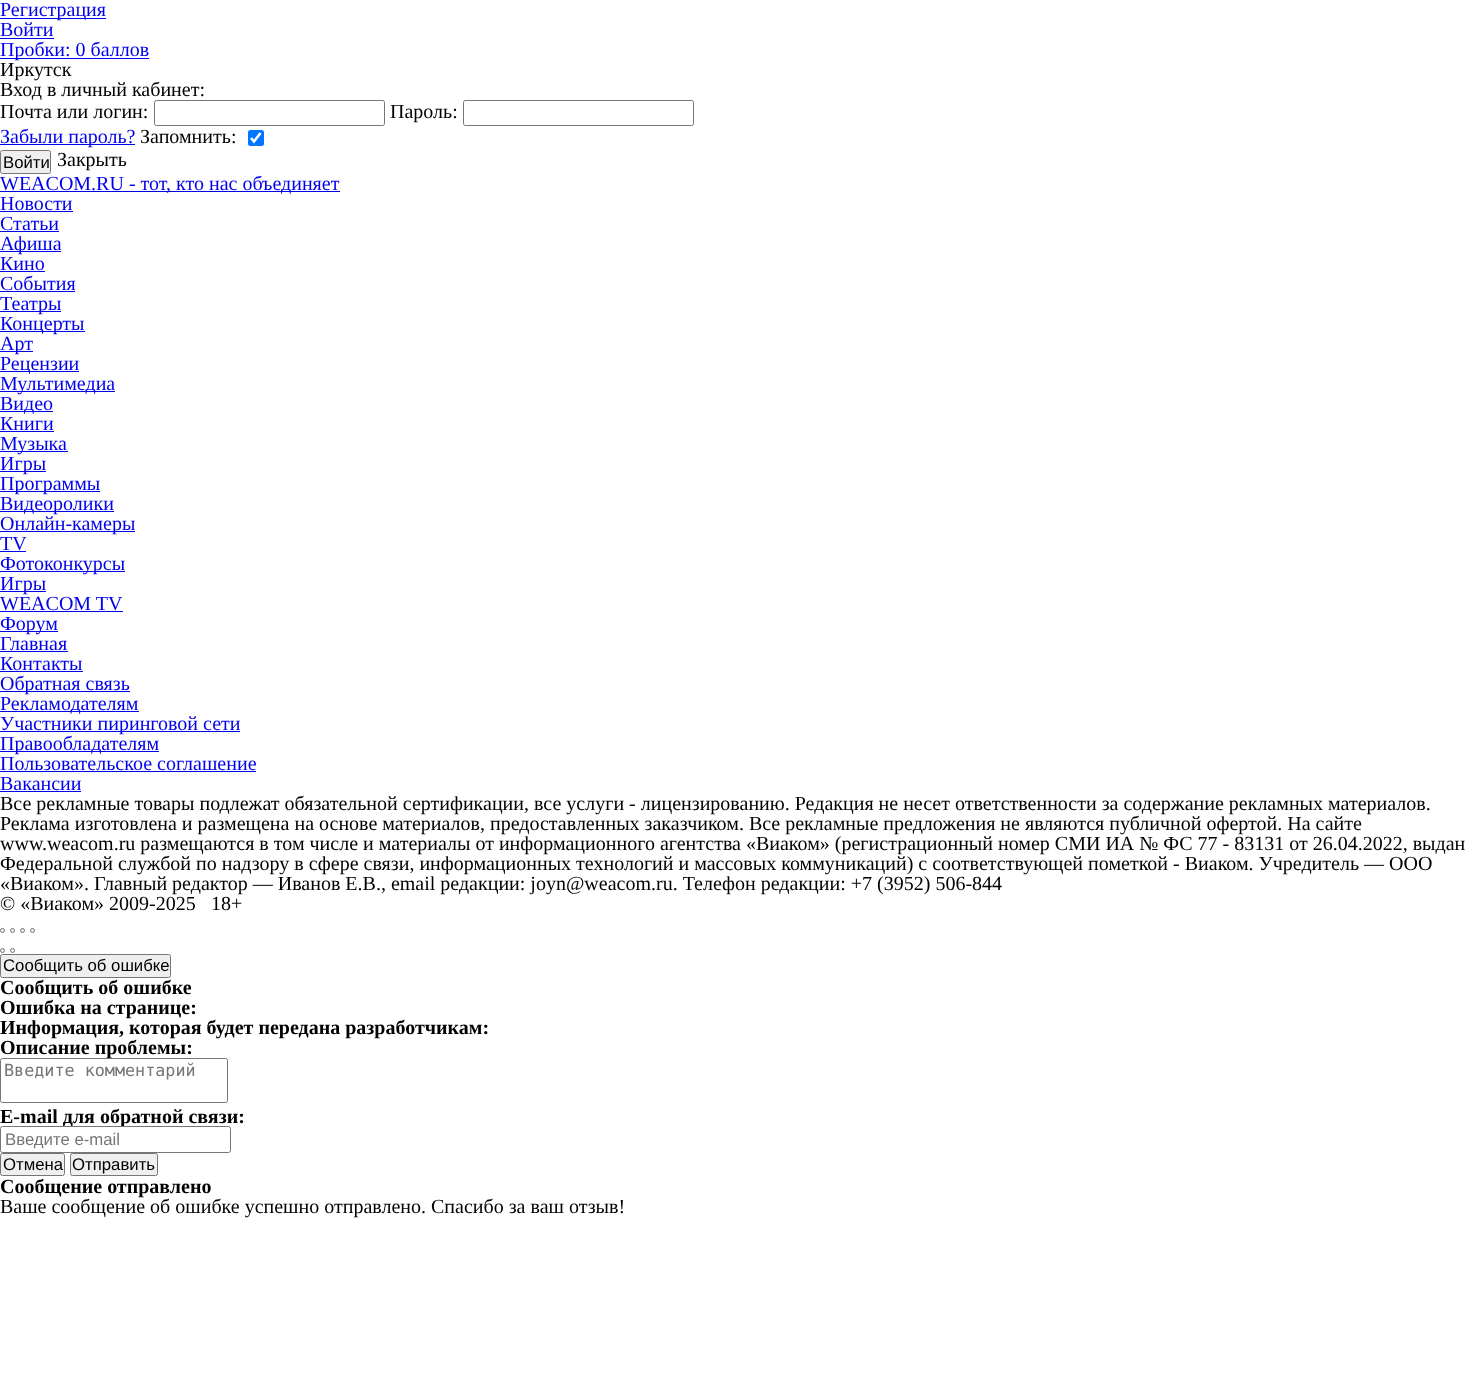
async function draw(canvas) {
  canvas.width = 1470
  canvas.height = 1397
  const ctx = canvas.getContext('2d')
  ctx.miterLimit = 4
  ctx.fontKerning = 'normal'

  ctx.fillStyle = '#fff'
  ctx.fillRect(0, 0, 1470, 1397)
  ctx.fillStyle = '#00e'
  ctx.fillRect(0, 18, 106, 1)
  ctx.font = '20px Liberation Serif'
  ctx.fillText('Регистрация', 0, 16)
  ctx.fillText('Войти', 0, 36)
  ctx.fillRect(0, 38, 54, 1)
  ctx.fillRect(0, 58, 149, 1)
  ctx.fillText('Пробки: 0 баллов', 0, 56)
  ctx.fillStyle = '#000'
  ctx.fillText('Иркутск', 0, 76)
  ctx.fillText('Вход в личный кабинет:', 0, 96)
  ctx.fillText('Почта или логин:', 0, 118)
  ctx.beginPath()
  ctx.roundRect(154.5, 100.5, 230, 25, 2)
  ctx.strokeStyle = '#767676'
  ctx.stroke()
  ctx.fillText('Пароль:', 390, 118)
  ctx.beginPath()
  ctx.roundRect(463.5, 100.5, 230, 25, 2)
  ctx.stroke()
  ctx.fillStyle = '#00e'
  ctx.fillRect(0, 144, 135, 1)
  ctx.fillText('Забыли пароль?', 0, 143)
  ctx.fillStyle = '#000'
  ctx.fillText('Запомнить:', 140, 143)
  ctx.fillStyle = '#0075ff'
  ctx.beginPath()
  ctx.roundRect(248, 130, 16, 16, 2.5)
  ctx.fill()
  ctx.beginPath()
  ctx.moveTo(251, 138)
  ctx.lineTo(254, 141.5)
  ctx.lineTo(260.5, 133)
  ctx.strokeStyle = '#fff'
  ctx.lineWidth = 2.6
  ctx.stroke()
  ctx.fillStyle = '#efefef'
  ctx.beginPath()
  ctx.roundRect(0.5, 150.5, 50, 23, 2)
  ctx.fill()
  ctx.strokeStyle = '#767676'
  ctx.lineWidth = 1
  ctx.stroke()
  ctx.font = '16.75px Liberation Sans'
  ctx.fillStyle = '#000'
  ctx.fillText('Войти', 3, 168)
  ctx.font = '20px Liberation Serif'
  ctx.fillText('Закрыть', 57, 166)
  ctx.fillStyle = '#00e'
  ctx.fillRect(0, 191, 340, 1)
  ctx.fillText('WEACOM.RU - тот, кто нас объединяет', 0, 190)
  ctx.fillText('Новости', 0, 210)
  ctx.fillRect(0, 211, 73, 1)
  ctx.fillText('Статьи', 0, 230)
  ctx.fillRect(0, 231, 59, 1)
  ctx.fillRect(0, 251, 61, 1)
  ctx.fillText('Афиша', 0, 250)
  ctx.fillText('Кино', 0, 270)
  ctx.fillRect(0, 271, 45, 1)
  ctx.fillText('События', 0, 290)
  ctx.fillRect(0, 291, 75, 1)
  ctx.fillRect(0, 311, 61, 1)
  ctx.fillText('Театры', 0, 310)
  ctx.fillRect(0, 331, 85, 1)
  ctx.fillText('Концерты', 0, 330)
  ctx.fillRect(0, 351, 33, 1)
  ctx.fillText('Арт', 0, 350)
  ctx.fillRect(0, 371, 79, 1)
  ctx.fillText('Рецензии', 0, 370)
  ctx.fillRect(0, 391, 115, 1)
  ctx.fillText('Мультимедиа', 0, 390)
  ctx.fillRect(0, 411, 53, 1)
  ctx.fillText('Видео', 0, 410)
  ctx.fillText('Книги', 0, 430)
  ctx.fillRect(0, 431, 54, 1)
  ctx.fillRect(0, 451, 68, 1)
  ctx.fillText('Музыка', 0, 450)
  ctx.fillRect(0, 471, 46, 1)
  ctx.fillText('Игры', 0, 470)
  ctx.fillRect(0, 491, 100, 1)
  ctx.fillText('Программы', 0, 490)
  ctx.fillRect(0, 511, 114, 1)
  ctx.fillText('Видеоролики', 0, 510)
  ctx.fillRect(0, 531, 135, 1)
  ctx.fillText('Онлайн-камеры', 0, 530)
  ctx.fillText('TV', 0, 550)
  ctx.fillRect(0, 551, 26, 1)
  ctx.fillRect(0, 571, 125, 1)
  ctx.fillText('Фотоконкурсы', 0, 570)
  ctx.fillRect(0, 591, 46, 1)
  ctx.fillText('Игры', 0, 590)
  ctx.fillText('WEACOM TV', 0, 610)
  ctx.fillRect(0, 611, 123, 1)
  ctx.fillRect(0, 631, 58, 1)
  ctx.fillText('Форум', 0, 630)
  ctx.fillText('Главная', 0, 650)
  ctx.fillRect(0, 651, 68, 1)
  ctx.fillText('Контакты', 0, 670)
  ctx.fillRect(0, 671, 83, 1)
  ctx.fillRect(0, 691, 130, 1)
  ctx.fillText('Обратная связь', 0, 690)
  ctx.fillRect(0, 711, 139, 1)
  ctx.fillText('Рекламодателям', 0, 710)
  ctx.fillRect(0, 731, 240, 1)
  ctx.fillText('Участники пиринговой сети', 0, 730)
  ctx.fillRect(0, 751, 159, 1)
  ctx.fillText('Правообладателям', 0, 750)
  ctx.fillText('Пользовательское соглашение', 0, 770)
  ctx.fillRect(0, 771, 256, 1)
  ctx.fillText('Вакансии', 0, 790)
  ctx.fillRect(0, 791, 81, 1)
  ctx.fillStyle = '#000'
  ctx.fillText('Все рекламные товары подлежат обязательной сертификации, все услуги - лицензированию. Редакция не несет ответственности за содержание рекламных материалов.', 0, 810)
  ctx.fillText('Реклама изготовлена и размещена на основе материалов, предоставленных заказчиком. Все рекламные предложения не являются публичной офертой. На сайте', 0, 830)
  ctx.fillText('www.weacom.ru размещаются в том числе и материалы от информационного агентства «Виаком» (регистрационный номер СМИ ИА № ФС 77 - 83131 от 26.04.2022, выдан', 0, 850)
  ctx.fillText('Федеральной службой по надзору в сфере связи, информационных технологий и массовых коммуникаций) с соответствующей пометкой - Виаком. Учредитель — ООО', 0, 870)
  ctx.fillText('«Виаком». Главный редактор — Иванов Е.В., email редакции: joyn@weacom.ru. Телефон редакции: +7 (3952) 506-844', 0, 890)
  ctx.fillText('© «Виаком» 2009-2025', 0, 910)
  ctx.fillText('18+', 211, 910)
  ctx.fillStyle = '#efefef'
  ctx.beginPath()
  ctx.arc(2.5, 930.5, 2, 0, 2 * Math.PI)
  ctx.fill()
  ctx.stroke()
  ctx.beginPath()
  ctx.arc(12.5, 930.5, 2, 0, 2 * Math.PI)
  ctx.fill()
  ctx.stroke()
  ctx.beginPath()
  ctx.arc(22.5, 930.5, 2, 0, 2 * Math.PI)
  ctx.fill()
  ctx.stroke()
  ctx.beginPath()
  ctx.arc(32.5, 930.5, 2, 0, 2 * Math.PI)
  ctx.fill()
  ctx.stroke()
  ctx.beginPath()
  ctx.arc(2.5, 950.5, 2, 0, 2 * Math.PI)
  ctx.fill()
  ctx.stroke()
  ctx.beginPath()
  ctx.arc(12.5, 950.5, 2, 0, 2 * Math.PI)
  ctx.fill()
  ctx.stroke()
  ctx.beginPath()
  ctx.roundRect(0.5, 954.5, 170, 23, 2)
  ctx.fill()
  ctx.stroke()
  ctx.font = '16.75px Liberation Sans'
  ctx.fillStyle = '#000'
  ctx.fillText('Сообщить об ошибке', 3, 971)
  ctx.font = 'bold 20px Liberation Serif'
  ctx.fillText('Сообщить об ошибке', 0, 994)
  ctx.fillText('Ошибка на странице:', 0, 1014)
  ctx.fillText('Информация, которая будет передана разработчикам:', 0, 1034)
  ctx.fillText('Описание проблемы:', 0, 1054)
  ctx.fillStyle = '#fff'
  ctx.beginPath()
  ctx.roundRect(0.5, 1058.5, 227, 44, 2)
  ctx.fill()
  ctx.stroke()
  ctx.font = '16.75px DejaVu Sans Mono'
  ctx.fillStyle = '#757575'
  ctx.fillText('Введите комментарий', 4, 1076)
  ctx.font = 'bold 20px Liberation Serif'
  ctx.fillStyle = '#000'
  ctx.fillText('E-mail для обратной связи:', 0, 1123)
  ctx.fillStyle = '#fff'
  ctx.beginPath()
  ctx.roundRect(0.5, 1126.5, 230, 26, 2)
  ctx.fill()
  ctx.stroke()
  ctx.font = '16.75px Liberation Sans'
  ctx.fillStyle = '#757575'
  ctx.fillText('Введите e-mail', 5, 1145)
  ctx.fillStyle = '#efefef'
  ctx.beginPath()
  ctx.roundRect(0.5, 1153.5, 64, 22, 2)
  ctx.fill()
  ctx.stroke()
  ctx.fillStyle = '#000'
  ctx.fillText('Отмена', 3, 1170)
  ctx.fillStyle = '#efefef'
  ctx.beginPath()
  ctx.roundRect(70.5, 1153.5, 87, 22, 2)
  ctx.fill()
  ctx.stroke()
  ctx.fillStyle = '#000'
  ctx.fillText('Отправить', 72, 1170)
  ctx.font = 'bold 20px Liberation Serif'
  ctx.fillText('Сообщение отправлено', 0, 1193)
  ctx.font = '20px Liberation Serif'
  ctx.fillText('Ваше сообщение об ошибке успешно отправлено. Спасибо за ваш отзыв!', 0, 1213)
}

draw(document.querySelector('canvas'))
